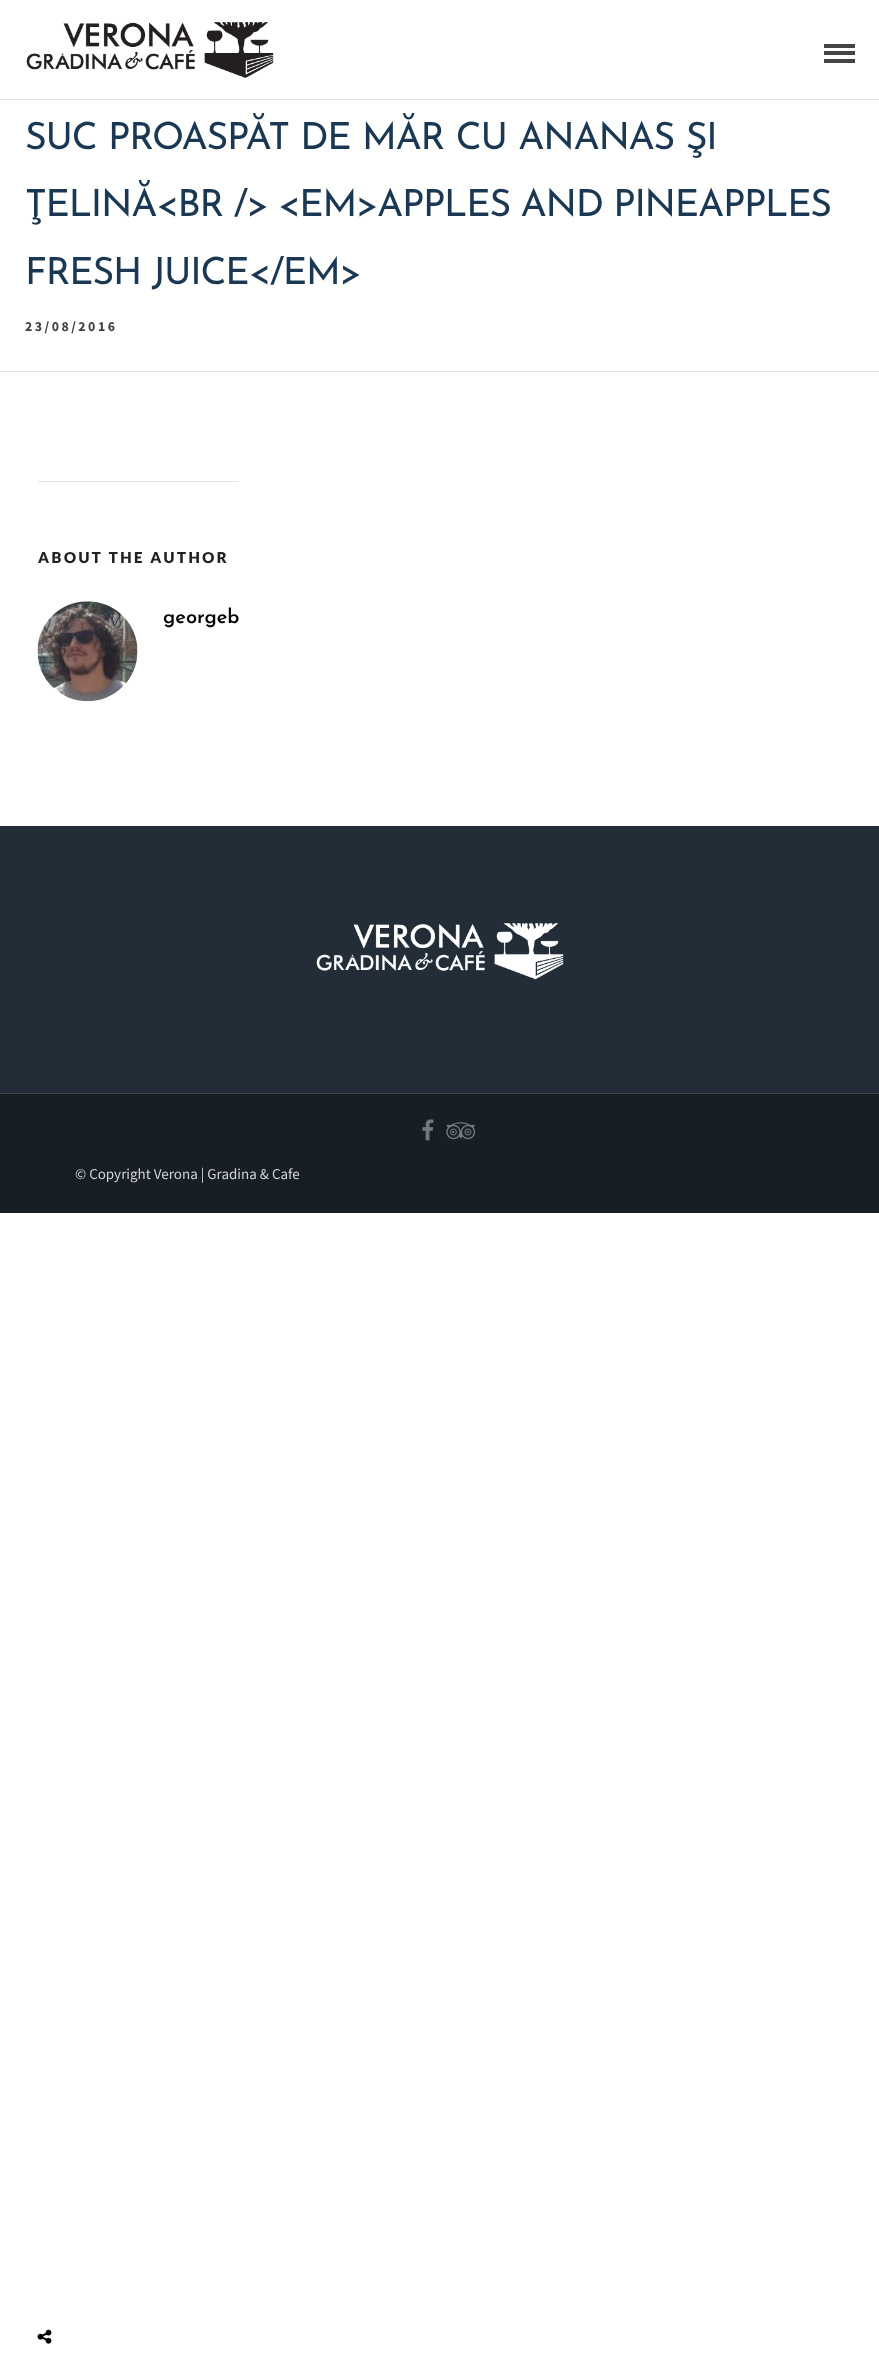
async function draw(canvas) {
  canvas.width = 879
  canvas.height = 2376
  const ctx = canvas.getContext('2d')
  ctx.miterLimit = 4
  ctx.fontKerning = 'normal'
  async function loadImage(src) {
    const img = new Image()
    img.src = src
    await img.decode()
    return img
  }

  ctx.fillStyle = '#fff'
  ctx.fillRect(0, 0, 879, 2376)
  ctx.fillStyle = '#e1e1e1'
  ctx.fillRect(0, 99, 879, 1)
  ctx.drawImage(await loadImage('image0.png'), 26, 22, 248, 56)
  ctx.fillStyle = '#444'
  ctx.fillRect(824, 44, 31, 4)
  ctx.fillRect(824, 51, 31, 4)
  ctx.fillRect(824, 59, 31, 4)
  ctx.fillStyle = '#e1e1e1'
  ctx.fillRect(0, 371, 879, 1)
  ctx.letterSpacing = '-1.25px'
  ctx.wordSpacing = '1px'
  ctx.font = '37.5px Josefin Sans'
  ctx.fillStyle = '#1a3853'
  ctx.fillText('SUC PROASPĂT DE MĂR CU ANANAS ŞI', 25, 149)
  ctx.wordSpacing = '0px'
  ctx.fillText('ŢELINĂ<BR /> <EM>APPLES AND PINEAPPLES', 25, 216)
  ctx.fillText('FRESH JUICE<\/EM>', 25, 284)
  ctx.letterSpacing = '2.5px'
  ctx.font = 'bold 13.75px Source Sans Pro'
  ctx.fillStyle = '#424242'
  ctx.fillText('23/08/2016', 25, 331)
  ctx.fillStyle = '#e1e1e1'
  ctx.fillRect(38, 481, 201, 1)
  ctx.font = '900 15px Lato'
  ctx.fillStyle = '#222'
  ctx.fillText('ABOUT THE AUTHOR', 38, 563)
  ctx.drawImage(await loadImage('image1.png'), 37, 601, 101, 101)
  ctx.letterSpacing = '0px'
  ctx.font = '600 20px Josefin Sans'
  ctx.fillStyle = '#000'
  ctx.fillText('georgeb', 163, 623)
  ctx.drawImage(await loadImage('image2.png'), 37, 2329, 15, 15)
  ctx.fillStyle = '#222d38'
  ctx.fillRect(0, 826, 879, 267)
  ctx.drawImage(await loadImage('image3.png'), 316, 923, 248, 57)
  ctx.fillStyle = '#171e26'
  ctx.fillRect(0, 1094, 879, 119)
  ctx.fillStyle = '#444'
  ctx.fillRect(0, 1093, 879, 1)
  ctx.drawImage(await loadImage('image4.png'), 422, 1119, 12, 22)
  ctx.drawImage(await loadImage('image5.png'), 446, 1122, 30, 18)
  ctx.font = '15px Source Sans Pro'
  ctx.fillStyle = '#d3d3d3'
  ctx.fillText('© Copyright Verona | Gradina & Cafe', 75, 1179)
}

draw(document.querySelector('canvas'))
